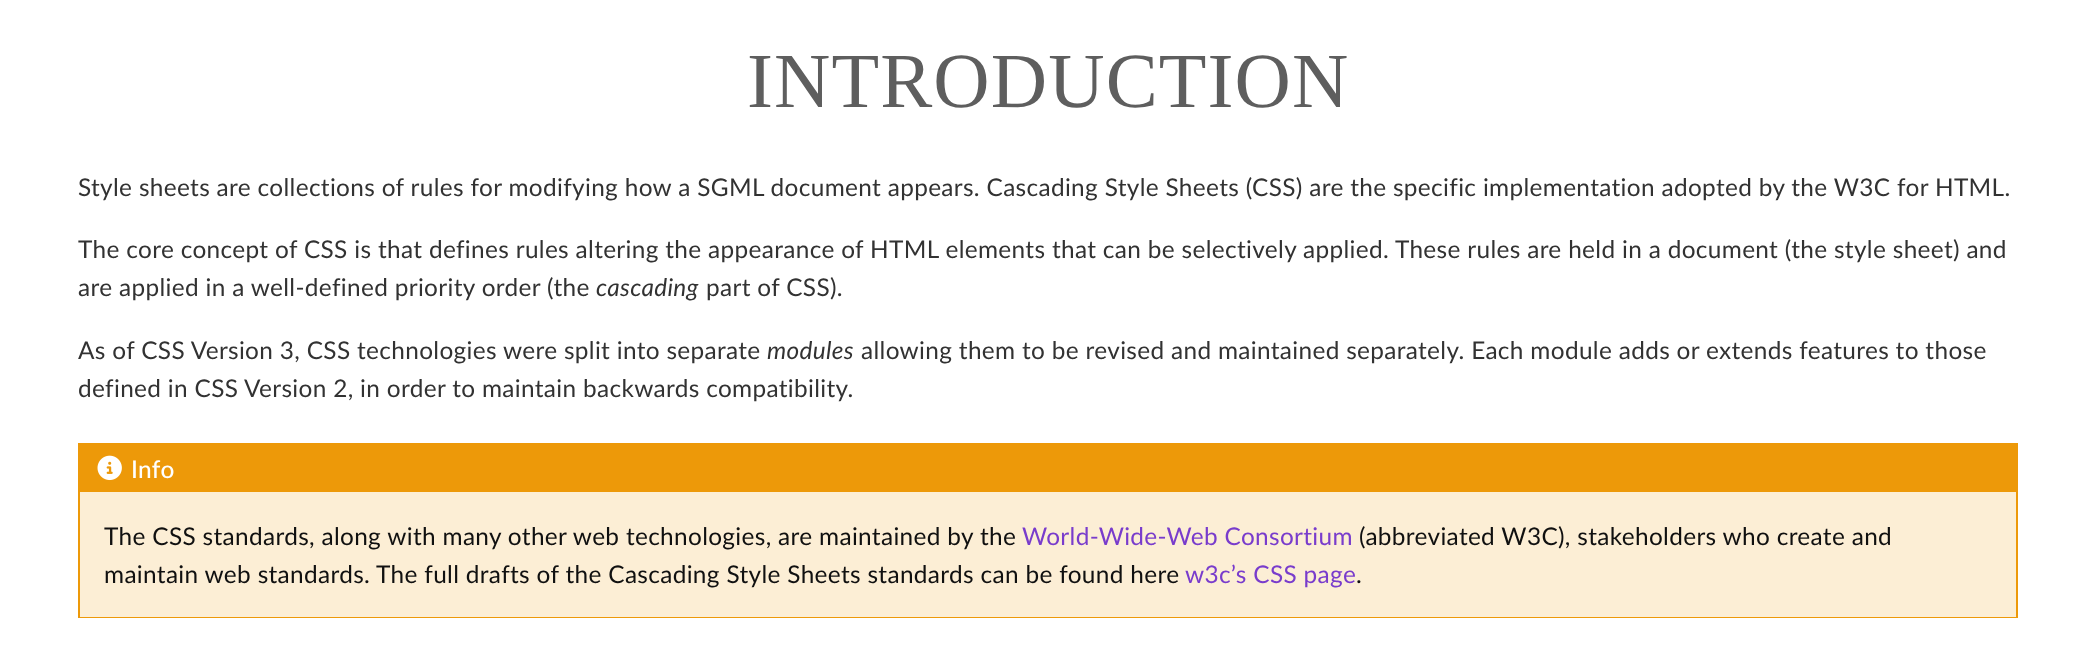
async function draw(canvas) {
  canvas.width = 2095
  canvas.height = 666
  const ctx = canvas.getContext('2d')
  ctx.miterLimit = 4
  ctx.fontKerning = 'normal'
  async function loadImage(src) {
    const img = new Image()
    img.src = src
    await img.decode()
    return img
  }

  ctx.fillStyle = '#fff'
  ctx.fillRect(0, 0, 2095, 666)
  ctx.letterSpacing = '1.1px'
  ctx.font = '78px Liberation Serif'
  ctx.fillStyle = '#5e5e5e'
  ctx.fillText('INTRODUCTION', 747, 107)
  ctx.letterSpacing = '0.34px'
  ctx.font = '24.38px Lato'
  ctx.fillStyle = '#323232'
  ctx.fillText('Style sheets are collections of rules for modifying how a SGML document appears. Cascading Style Sheets (CSS) are the specific implementation adopted by the W3C for HTML.', 78, 196)
  ctx.fillText('The core concept of CSS is that defines rules altering the appearance of HTML elements that can be selectively applied. These rules are held in a document (the style sheet) and', 78, 258)
  ctx.fillText('are applied in a well-defined priority order (the', 78, 296)
  ctx.font = 'italic 24.38px Lato'
  ctx.fillText('cascading', 596, 296)
  ctx.font = '24.38px Lato'
  ctx.fillText('part of CSS).', 706, 296)
  ctx.fillText('As of CSS Version 3, CSS technologies were split into separate', 78, 359)
  ctx.font = 'italic 24.38px Lato'
  ctx.fillText('modules', 767, 359)
  ctx.font = '24.38px Lato'
  ctx.fillText('allowing them to be revised and maintained separately. Each module adds or extends features to those', 861, 359)
  ctx.fillText('defined in CSS Version 2, in order to maintain backwards compatibility.', 78, 397)
  ctx.fillStyle = '#ed9909'
  ctx.fillRect(78, 443, 1940, 175)
  ctx.drawImage(await loadImage('image0.png'), 97, 455, 25, 26)
  ctx.font = '500 24.38px Lato'
  ctx.fillStyle = '#fff'
  ctx.fillText('Info', 131, 478)
  ctx.fillStyle = '#fceed5'
  ctx.fillRect(80, 492, 1936, 125)
  ctx.font = '24.38px Lato'
  ctx.fillStyle = '#101010'
  ctx.fillText('The CSS standards, along with many other web technologies, are maintained by the', 104, 545)
  ctx.fillStyle = '#793ccc'
  ctx.fillText('World-Wide-Web Consortium', 1022, 545)
  ctx.fillStyle = '#101010'
  ctx.fillText('(abbreviated W3C), stakeholders who create and', 1359, 545)
  ctx.fillText('maintain web standards. The full drafts of the Cascading Style Sheets standards can be found here', 104, 583)
  ctx.fillStyle = '#793ccc'
  ctx.fillText('w3c’s CSS page', 1185, 583)
  ctx.fillStyle = '#101010'
  ctx.fillText('.', 1356, 583)
}

draw(document.querySelector('canvas'))
